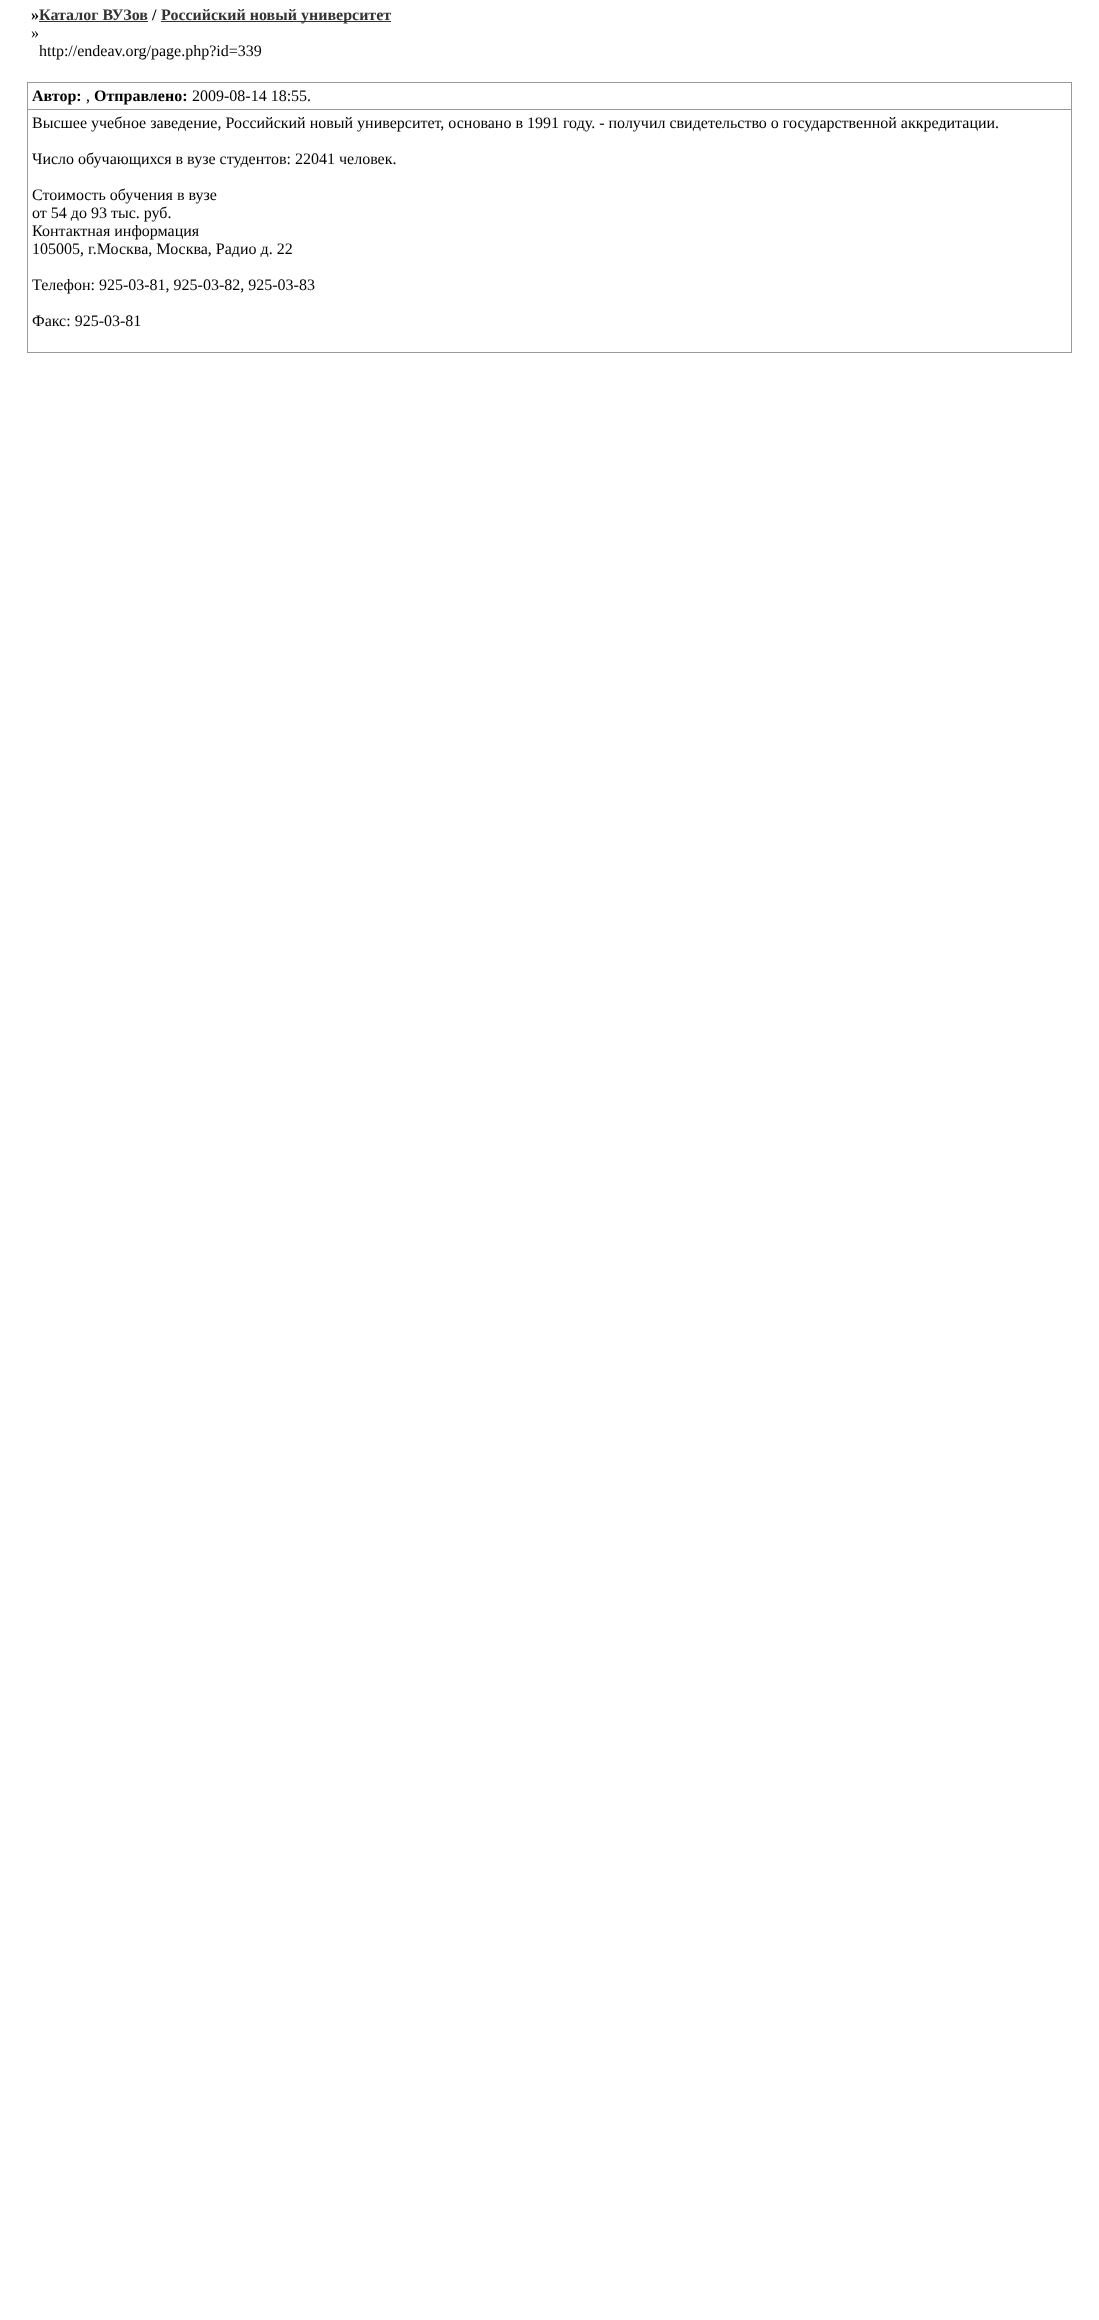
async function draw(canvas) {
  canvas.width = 1099
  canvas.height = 2320
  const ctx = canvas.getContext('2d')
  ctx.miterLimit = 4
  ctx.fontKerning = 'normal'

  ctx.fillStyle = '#fff'
  ctx.fillRect(0, 0, 1099, 2320)
  ctx.font = 'bold 16px Liberation Serif'
  ctx.fillStyle = '#000'
  ctx.fillText('»', 31, 20)
  ctx.fillStyle = '#333'
  ctx.fillRect(39, 21, 109, 1)
  ctx.fillText('Каталог ВУЗов', 39, 20)
  ctx.fillStyle = '#000'
  ctx.fillText('/', 152, 20)
  ctx.fillStyle = '#333'
  ctx.fillRect(161, 21, 230, 1)
  ctx.fillText('Российский новый университет', 161, 20)
  ctx.font = '16px Liberation Serif'
  ctx.fillStyle = '#000'
  ctx.fillText('»', 31, 38)
  ctx.fillText('http://endeav.org/page.php?id=339', 39, 56)
  ctx.fillStyle = '#999'
  ctx.fillRect(27, 82, 1045, 271)
  ctx.fillStyle = '#fff'
  ctx.fillRect(28, 83, 1043, 26)
  ctx.font = 'bold 16px Liberation Serif'
  ctx.fillStyle = '#000'
  ctx.fillText('Автор:', 32, 101)
  ctx.font = '16px Liberation Serif'
  ctx.fillText(',', 86, 101)
  ctx.font = 'bold 16px Liberation Serif'
  ctx.fillText('Отправлено:', 94, 101)
  ctx.font = '16px Liberation Serif'
  ctx.fillText('2009-08-14 18:55.', 192, 101)
  ctx.fillStyle = '#fff'
  ctx.fillRect(28, 110, 1043, 242)
  ctx.fillStyle = '#000'
  ctx.fillText('Высшее учебное заведение, Российский новый университет, основано в 1991 году. - получил свидетельство о государственной аккредитации.', 32, 128)
  ctx.fillText('Число обучающихся в вузе студентов: 22041 человек.', 32, 164)
  ctx.fillText('Стоимость обучения в вузе', 32, 200)
  ctx.fillText('от 54 до 93 тыс. руб.', 32, 218)
  ctx.fillText('Контактная информация', 32, 236)
  ctx.fillText('105005, г.Москва, Москва, Радио д. 22', 32, 254)
  ctx.fillText('Телефон: 925-03-81, 925-03-82, 925-03-83', 32, 290)
  ctx.fillText('Факс: 925-03-81', 32, 326)
}

draw(document.querySelector('canvas'))
